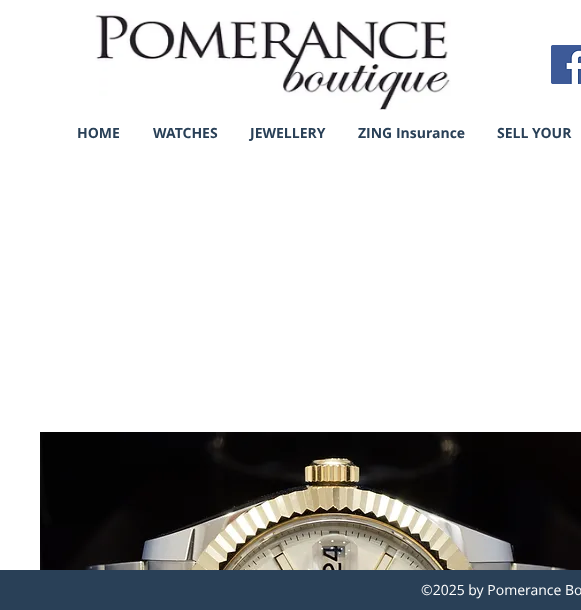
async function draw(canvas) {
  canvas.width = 581
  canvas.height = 610
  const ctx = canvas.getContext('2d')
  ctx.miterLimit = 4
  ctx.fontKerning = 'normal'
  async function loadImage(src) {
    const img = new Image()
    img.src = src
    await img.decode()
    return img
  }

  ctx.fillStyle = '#fff'
  ctx.fillRect(0, 0, 581, 610)
  ctx.drawImage(await loadImage('image0.png'), 95, 11, 356, 99)
  ctx.drawImage(await loadImage('image1.png'), 551, 45, 30, 39)
  ctx.font = 'bold 14px Open Sans'
  ctx.fillStyle = '#294057'
  ctx.fillText('HOME', 77, 138)
  ctx.fillText('WATCHES', 153, 138)
  ctx.fillText('JEWELLERY', 250, 138)
  ctx.fillText('ZING Insurance', 358, 138)
  ctx.fillText('SELL YOUR', 497, 138)
  ctx.drawImage(await loadImage('image2.png'), 40, 432, 541, 138)
  ctx.fillRect(0, 570, 581, 40)
  ctx.font = '14px Open Sans'
  ctx.fillStyle = '#fff'
  ctx.fillText('©2025 by Pomerance Bo', 421, 595)
}

draw(document.querySelector('canvas'))
